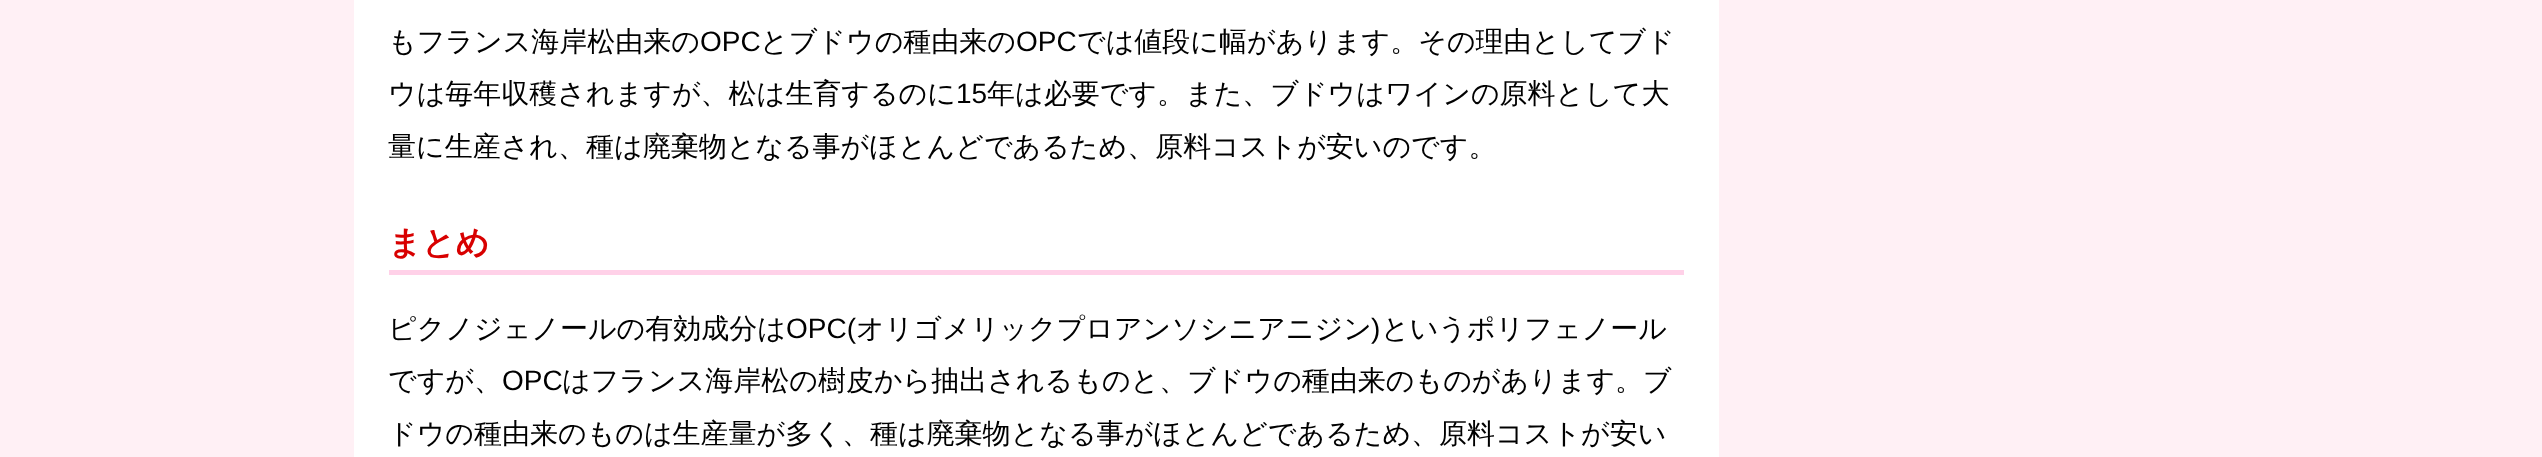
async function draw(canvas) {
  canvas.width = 2542
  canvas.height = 457
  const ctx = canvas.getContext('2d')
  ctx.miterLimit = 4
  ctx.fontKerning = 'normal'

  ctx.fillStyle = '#fff0f5'
  ctx.fillRect(0, 0, 2542, 457)
  ctx.fillStyle = '#fff'
  ctx.fillRect(354, 0, 1365, 457)
  ctx.font = '500 28px WenQuanYi Zen Hei'
  ctx.fillStyle = '#000'
  ctx.fillText('もフランス海岸松由来の', 388, 51)
  ctx.font = '28px Liberation Sans'
  ctx.fillText('OPC', 700, 51)
  ctx.font = '500 28px WenQuanYi Zen Hei'
  ctx.fillText('とブドウの種由来の', 760, 51)
  ctx.font = '28px Liberation Sans'
  ctx.fillText('OPC', 1016, 51)
  ctx.font = '500 28px WenQuanYi Zen Hei'
  ctx.fillText('では値段に幅があります。その理由としてブド', 1077, 51)
  ctx.fillText('ウは毎年収穫されますが、松は生育するのに', 388, 103)
  ctx.font = '28px Liberation Sans'
  ctx.fillText('15', 956, 103)
  ctx.font = '500 28px WenQuanYi Zen Hei'
  ctx.fillText('年は必要です。また、ブドウはワインの原料として大', 987, 103)
  ctx.fillText('量に生産され、種は廃棄物となる事がほとんどであるため、原料コストが安いのです。', 388, 156)
  ctx.fillStyle = '#ffd1e8'
  ctx.fillRect(389, 270, 1295, 5)
  ctx.font = 'bold 33px WenQuanYi Zen Hei'
  ctx.fillStyle = '#d80000'
  ctx.fillText('まとめ', 388, 254)
  ctx.font = '500 28px WenQuanYi Zen Hei'
  ctx.fillStyle = '#000'
  ctx.fillText('ピクノジェノールの有効成分は', 388, 338)
  ctx.font = '28px Liberation Sans'
  ctx.fillText('OPC(', 786, 338)
  ctx.font = '500 28px WenQuanYi Zen Hei'
  ctx.fillText('オリゴメリックプロアンソシニアニジン', 856, 338)
  ctx.font = '28px Liberation Sans'
  ctx.fillText(')', 1371, 338)
  ctx.font = '500 28px WenQuanYi Zen Hei'
  ctx.fillText('というポリフェノール', 1381, 338)
  ctx.fillText('ですが、', 388, 390)
  ctx.font = '28px Liberation Sans'
  ctx.fillText('OPC', 502, 390)
  ctx.font = '500 28px WenQuanYi Zen Hei'
  ctx.fillText('はフランス海岸松の樹皮から抽出されるものと、ブドウの種由来のものがあります。ブ', 562, 390)
  ctx.fillText('ドウの種由来のものは生産量が多く、種は廃棄物となる事がほとんどであるため、原料コストが安い', 388, 443)
}

draw(document.querySelector('canvas'))
